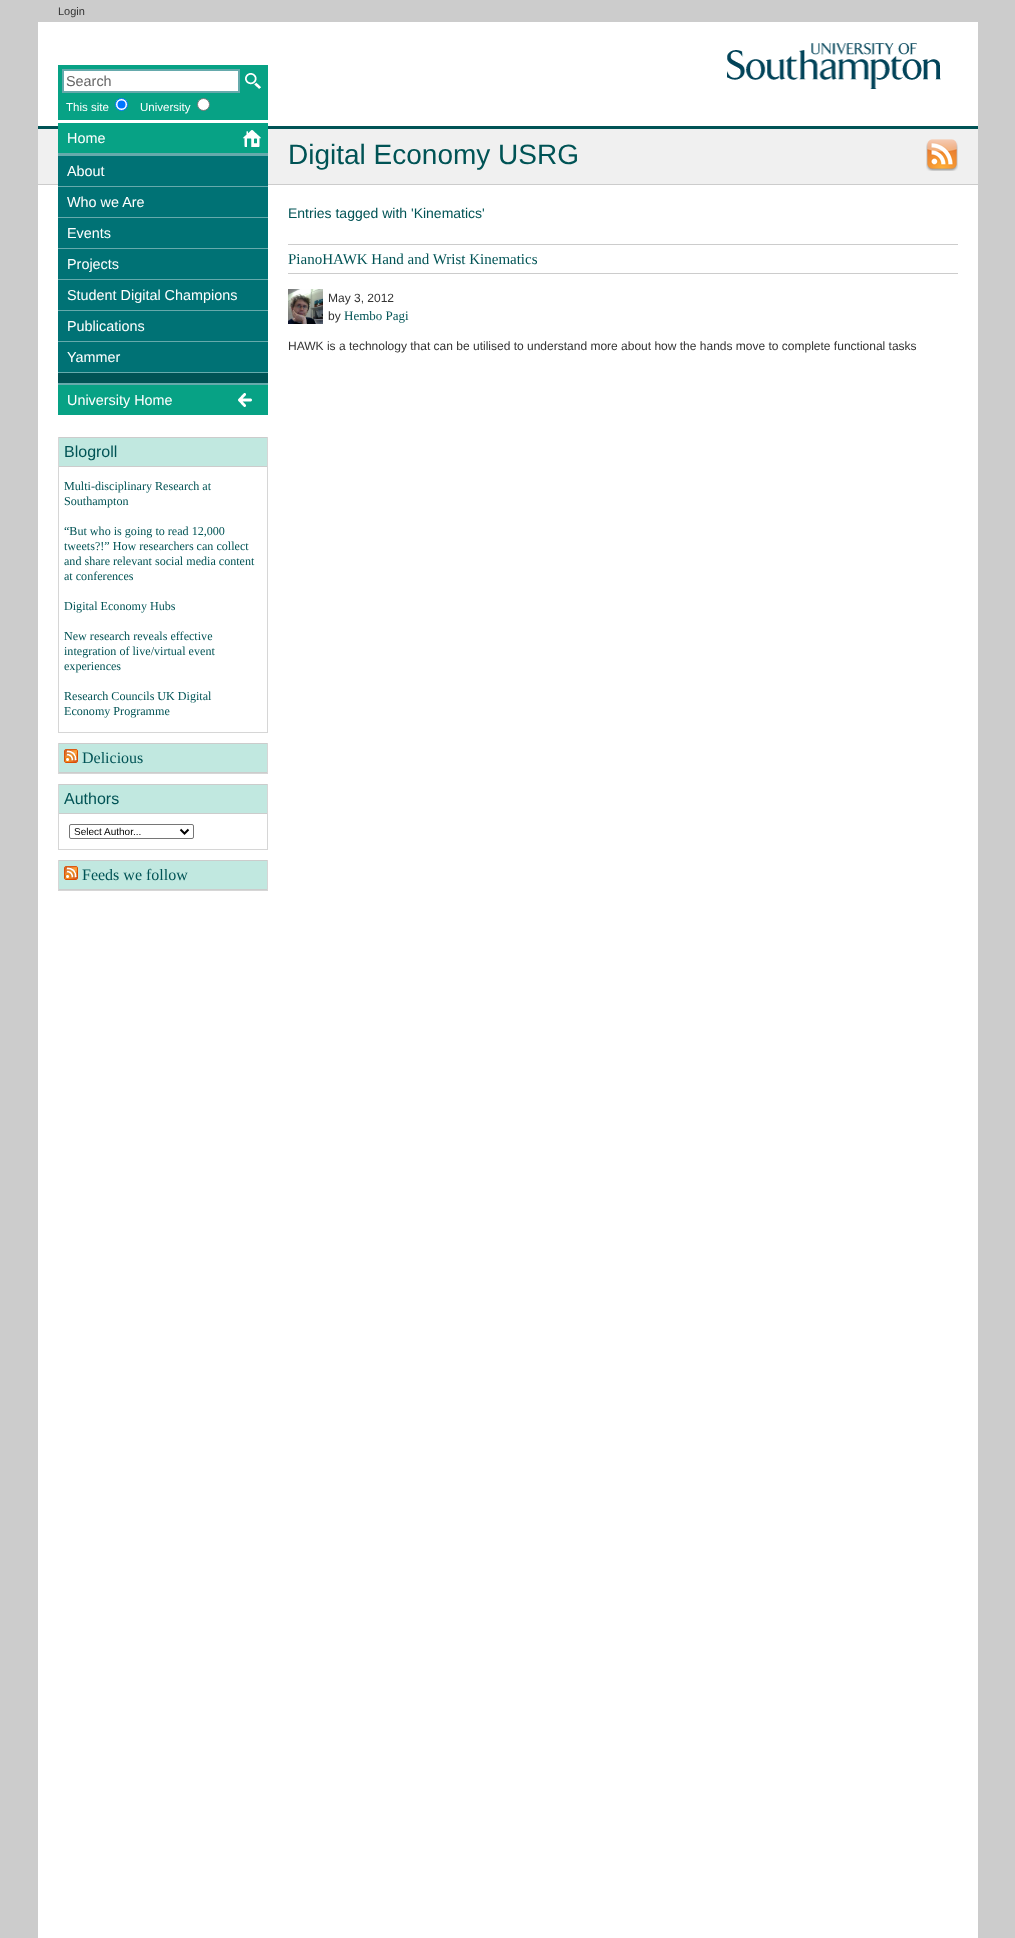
async function draw(canvas) {
  canvas.width = 1015
  canvas.height = 1938
  const ctx = canvas.getContext('2d')
  ctx.miterLimit = 4
  ctx.fontKerning = 'normal'
  async function loadImage(src) {
    const img = new Image()
    img.src = src
    await img.decode()
    return img
  }

  ctx.fillStyle = '#ccc'
  ctx.fillRect(0, 0, 1015, 1938)
  ctx.font = '11px Liberation Sans'
  ctx.fillStyle = '#333'
  ctx.fillText('Login', 58, 15)
  ctx.fillStyle = '#fff'
  ctx.fillRect(38, 22, 940, 104)
  ctx.fillStyle = '#005355'
  ctx.fillRect(38, 126, 940, 3)
  ctx.drawImage(await loadImage('image0.png'), 727, 43, 214, 46)
  ctx.fillStyle = '#fff'
  ctx.fillRect(38, 185, 940, 1753)
  ctx.fillStyle = '#07a285'
  ctx.fillRect(58, 65, 210, 55)
  ctx.fillStyle = '#fff'
  ctx.beginPath()
  ctx.rect(63, 70, 176, 22)
  ctx.fill()
  ctx.strokeStyle = '#66aaac'
  ctx.lineWidth = 2
  ctx.stroke()
  ctx.font = '14.4px Liberation Sans'
  ctx.fillStyle = '#666'
  ctx.fillText('Search', 66, 86)
  ctx.drawImage(await loadImage('image1.png'), 245, 73, 16, 16)
  ctx.font = '11.5px Liberation Sans'
  ctx.fillStyle = '#fff'
  ctx.fillText('This site', 66, 111)
  ctx.beginPath()
  ctx.arc(121.5, 104.5, 6, 0, 2 * Math.PI)
  ctx.fill()
  ctx.strokeStyle = '#0075ff'
  ctx.lineWidth = 1
  ctx.stroke()
  ctx.fillStyle = '#0075ff'
  ctx.beginPath()
  ctx.arc(121.5, 104.5, 4, 0, 2 * Math.PI)
  ctx.fill()
  ctx.fillStyle = '#fff'
  ctx.fillText('University', 140, 111)
  ctx.beginPath()
  ctx.arc(203.5, 104.5, 6, 0, 2 * Math.PI)
  ctx.fill()
  ctx.strokeStyle = '#767676'
  ctx.stroke()
  ctx.fillStyle = '#f0f0f0'
  ctx.fillRect(38, 129, 940, 55)
  ctx.fillStyle = '#07a285'
  ctx.fillRect(58, 123, 210, 30)
  ctx.drawImage(await loadImage('image2.png'), 243, 130, 18, 17)
  ctx.font = '14.4px Liberation Sans'
  ctx.fillStyle = '#fff'
  ctx.fillText('Home', 67, 143)
  ctx.fillStyle = '#66aaac'
  ctx.fillRect(58, 153, 210, 3)
  ctx.fillStyle = '#005355'
  ctx.fillRect(58, 373, 210, 10)
  ctx.fillStyle = '#66aaac'
  ctx.fillRect(58, 186, 210, 1)
  ctx.fillStyle = '#007275'
  ctx.fillRect(58, 156, 210, 30)
  ctx.fillStyle = '#fff'
  ctx.fillText('About', 67, 176)
  ctx.fillStyle = '#66aaac'
  ctx.fillRect(58, 217, 210, 1)
  ctx.fillStyle = '#007275'
  ctx.fillRect(58, 187, 210, 30)
  ctx.fillStyle = '#fff'
  ctx.fillText('Who we Are', 67, 207)
  ctx.fillStyle = '#66aaac'
  ctx.fillRect(58, 248, 210, 1)
  ctx.fillStyle = '#007275'
  ctx.fillRect(58, 218, 210, 30)
  ctx.fillStyle = '#fff'
  ctx.fillText('Events', 67, 238)
  ctx.fillStyle = '#66aaac'
  ctx.fillRect(58, 279, 210, 1)
  ctx.fillStyle = '#007275'
  ctx.fillRect(58, 249, 210, 30)
  ctx.fillStyle = '#fff'
  ctx.fillText('Projects', 67, 269)
  ctx.fillStyle = '#66aaac'
  ctx.fillRect(58, 310, 210, 1)
  ctx.fillStyle = '#007275'
  ctx.fillRect(58, 280, 210, 30)
  ctx.fillStyle = '#fff'
  ctx.fillText('Student Digital Champions', 67, 300)
  ctx.fillStyle = '#66aaac'
  ctx.fillRect(58, 341, 210, 1)
  ctx.fillStyle = '#007275'
  ctx.fillRect(58, 311, 210, 30)
  ctx.fillStyle = '#fff'
  ctx.fillText('Publications', 67, 331)
  ctx.fillStyle = '#66aaac'
  ctx.fillRect(58, 372, 210, 1)
  ctx.fillStyle = '#007275'
  ctx.fillRect(58, 342, 210, 30)
  ctx.fillStyle = '#fff'
  ctx.fillText('Yammer', 67, 362)
  ctx.fillStyle = '#07a285'
  ctx.fillRect(58, 385, 210, 30)
  ctx.drawImage(await loadImage('image3.png'), 238, 393, 14, 14)
  ctx.fillStyle = '#66aaac'
  ctx.fillRect(58, 383, 210, 2)
  ctx.fillStyle = '#fff'
  ctx.fillText('University Home', 67, 405)
  ctx.fillStyle = '#d6d6d6'
  ctx.fillRect(267, 437, 1, 296)
  ctx.fillRect(58, 732, 210, 1)
  ctx.fillRect(58, 437, 1, 296)
  ctx.fillStyle = '#c1e8e0'
  ctx.fillRect(59, 438, 208, 28)
  ctx.fillStyle = '#ccc'
  ctx.fillRect(59, 437, 208, 1)
  ctx.fillRect(59, 466, 208, 1)
  ctx.font = '16px Liberation Sans'
  ctx.fillStyle = '#005355'
  ctx.fillText('Blogroll', 64, 457)
  ctx.font = '12.1px Liberation Serif'
  ctx.fillText('Multi-disciplinary Research at', 64, 490)
  ctx.fillText('Southampton', 64, 505)
  ctx.fillText('“But who is going to read 12,000', 64, 535)
  ctx.fillText('tweets?!” How researchers can collect', 64, 550)
  ctx.fillText('and share relevant social media content', 64, 565)
  ctx.fillText('at conferences', 64, 580)
  ctx.fillText('Digital Economy Hubs', 64, 610)
  ctx.fillText('New research reveals effective', 64, 640)
  ctx.fillText('integration of live/virtual event', 64, 655)
  ctx.fillText('experiences', 64, 670)
  ctx.fillText('Research Councils UK Digital', 64, 700)
  ctx.fillText('Economy Programme', 64, 715)
  ctx.fillStyle = '#d6d6d6'
  ctx.fillRect(267, 743, 1, 31)
  ctx.fillRect(58, 773, 210, 1)
  ctx.fillRect(58, 743, 1, 31)
  ctx.fillStyle = '#c1e8e0'
  ctx.fillRect(59, 744, 208, 28)
  ctx.fillStyle = '#ccc'
  ctx.fillRect(59, 743, 208, 1)
  ctx.fillRect(59, 772, 208, 1)
  ctx.drawImage(await loadImage('image4.png'), 64, 749, 14, 14)
  ctx.font = '16px Liberation Serif'
  ctx.fillStyle = '#005355'
  ctx.fillText('Delicious', 82, 763)
  ctx.fillStyle = '#d6d6d6'
  ctx.fillRect(267, 784, 1, 66)
  ctx.fillRect(58, 849, 210, 1)
  ctx.fillRect(58, 784, 1, 66)
  ctx.fillStyle = '#c1e8e0'
  ctx.fillRect(59, 785, 208, 28)
  ctx.fillStyle = '#ccc'
  ctx.fillRect(59, 784, 208, 1)
  ctx.fillRect(59, 813, 208, 1)
  ctx.font = '16px Liberation Sans'
  ctx.fillStyle = '#005355'
  ctx.fillText('Authors', 64, 804)
  ctx.beginPath()
  ctx.roundRect(69.5, 824.5, 124, 14, 1.5)
  ctx.stroke()
  ctx.beginPath()
  ctx.moveTo(180.5, 829.5)
  ctx.lineTo(184.5, 833.5)
  ctx.lineTo(188.5, 829.5)
  ctx.strokeStyle = '#000'
  ctx.lineWidth = 2
  ctx.stroke()
  ctx.font = '10px Liberation Sans'
  ctx.fillStyle = '#000'
  ctx.fillText('Select Author...', 74, 835)
  ctx.fillStyle = '#d6d6d6'
  ctx.fillRect(267, 860, 1, 31)
  ctx.fillRect(58, 890, 210, 1)
  ctx.fillRect(58, 860, 1, 31)
  ctx.fillStyle = '#c1e8e0'
  ctx.fillRect(59, 861, 208, 28)
  ctx.fillStyle = '#ccc'
  ctx.fillRect(59, 860, 208, 1)
  ctx.fillRect(59, 889, 208, 1)
  ctx.drawImage(await loadImage('image4.png'), 64, 866, 14, 14)
  ctx.font = '16px Liberation Serif'
  ctx.fillStyle = '#005355'
  ctx.fillText('Feeds we follow', 82, 880)
  ctx.font = '14px Liberation Sans'
  ctx.fillText('Entries tagged with \'Kinematics\'', 288, 218)
  ctx.fillStyle = '#ccc'
  ctx.fillRect(288, 244, 670, 1)
  ctx.fillRect(288, 273, 670, 1)
  ctx.font = '15px Liberation Serif'
  ctx.fillStyle = '#005355'
  ctx.fillText('PianoHAWK Hand and Wrist Kinematics', 288, 264)
  ctx.drawImage(await loadImage('image5.png'), 288, 289, 35, 35)
  ctx.font = '12px Liberation Sans'
  ctx.fillStyle = '#333'
  ctx.fillText('May 3, 2012', 328, 302)
  ctx.fillText('by', 328, 320)
  ctx.font = '13px Liberation Serif'
  ctx.fillStyle = '#005355'
  ctx.fillText('Hembo Pagi', 344, 320)
  ctx.font = '12px Liberation Sans'
  ctx.fillStyle = '#333'
  ctx.fillText('HAWK is a technology that can be utilised to understand more about how the hands move to complete functional tasks', 288, 350)
  ctx.font = '28px Liberation Sans'
  ctx.fillStyle = '#005355'
  ctx.fillText('Digital Economy USRG', 288, 164)
  ctx.drawImage(await loadImage('image6.png'), 926, 139, 32, 32)
}

draw(document.querySelector('canvas'))
